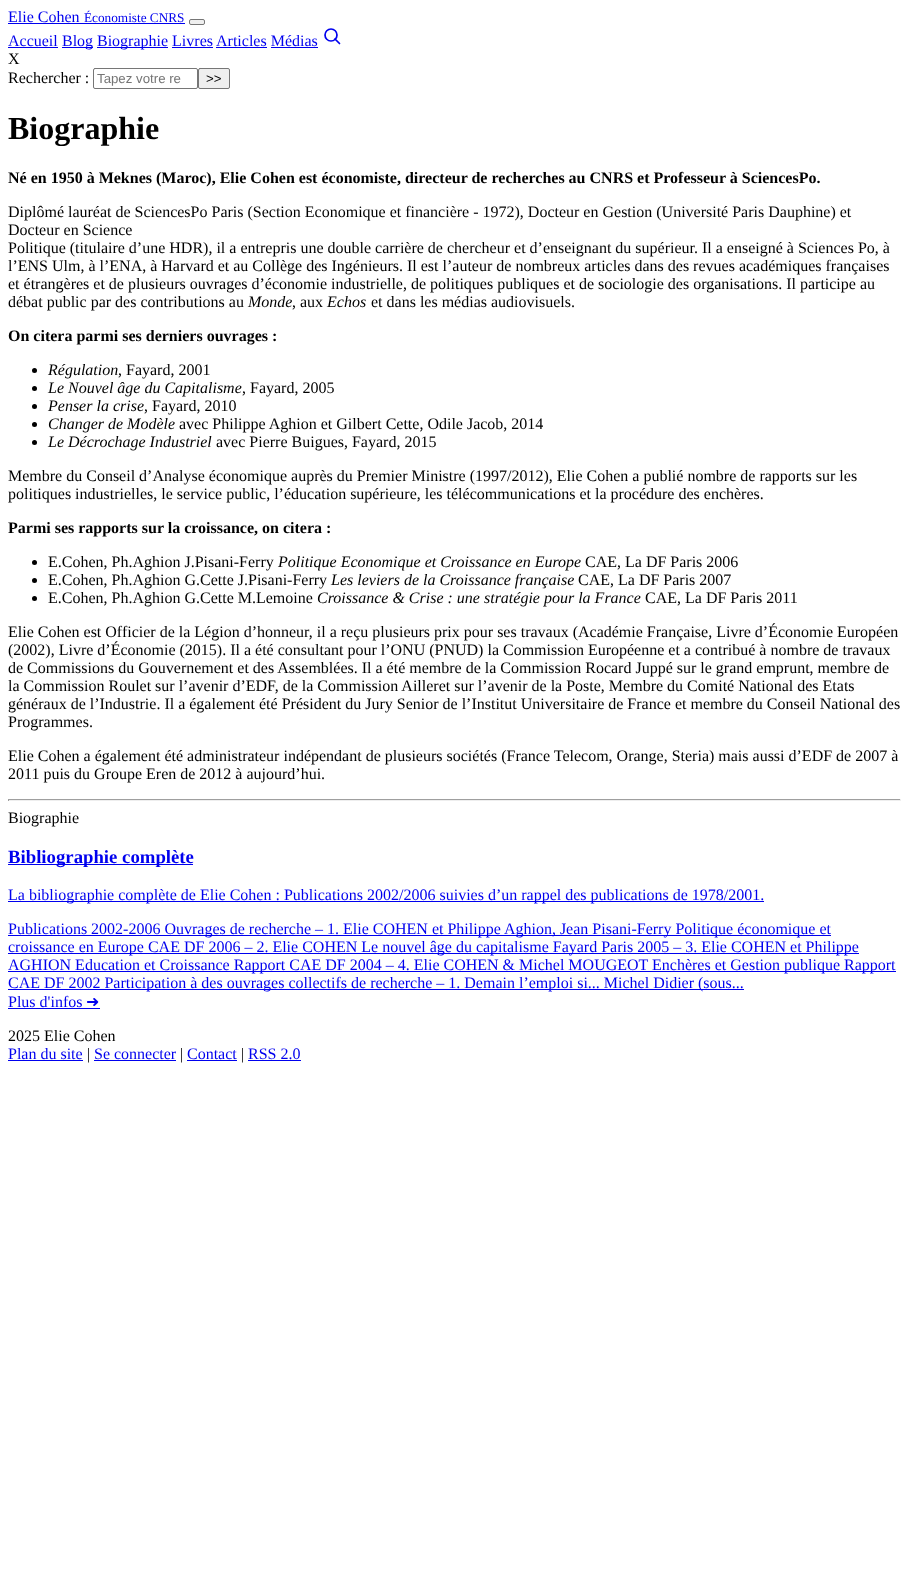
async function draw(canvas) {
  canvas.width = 909
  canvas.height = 1592
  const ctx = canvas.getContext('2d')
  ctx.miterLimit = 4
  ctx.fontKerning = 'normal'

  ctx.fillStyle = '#fff'
  ctx.fillRect(0, 0, 909, 1592)
  ctx.font = '16px Liberation Serif'
  ctx.fillStyle = '#00e'
  ctx.fillText('Elie Cohen', 8, 22)
  ctx.fillRect(8, 23, 177, 1)
  ctx.font = '13.25px Liberation Serif'
  ctx.fillText('Économiste CNRS', 84, 22)
  ctx.fillStyle = '#efefef'
  ctx.beginPath()
  ctx.roundRect(189.5, 19.5, 15, 5, 1.5)
  ctx.fill()
  ctx.strokeStyle = '#767676'
  ctx.stroke()
  ctx.font = '16px Liberation Serif'
  ctx.fillStyle = '#00e'
  ctx.fillText('Accueil', 8, 46)
  ctx.fillRect(8, 47, 50, 1)
  ctx.fillRect(62, 47, 31, 1)
  ctx.fillText('Blog', 62, 46)
  ctx.fillRect(97, 47, 71, 1)
  ctx.fillText('Biographie Livres', 97, 46)
  ctx.fillText('Articles Médias', 216, 46)
  ctx.fillRect(216, 47, 51, 1)
  ctx.beginPath()
  ctx.arc(331, 35, 6, 0, 2 * Math.PI)
  ctx.strokeStyle = '#00e'
  ctx.lineWidth = 1.7
  ctx.stroke()
  ctx.beginPath()
  ctx.moveTo(339.5, 43.5)
  ctx.lineTo(335, 39)
  ctx.lineCap = 'round'
  ctx.lineJoin = 'round'
  ctx.stroke()
  ctx.fillRect(172, 47, 41, 1)
  ctx.fillRect(271, 47, 47, 1)
  ctx.fillStyle = '#000'
  ctx.fillText('X', 8, 64)
  ctx.fillText('Rechercher :', 8, 83)
  ctx.beginPath()
  ctx.roundRect(93.5, 68.5, 104, 20, 1.5)
  ctx.strokeStyle = '#767676'
  ctx.lineWidth = 1
  ctx.lineJoin = 'miter'
  ctx.stroke()
  ctx.font = '13.25px Liberation Sans'
  ctx.fillStyle = '#757575'
  ctx.fillText('Tapez votre re', 97, 83)
  ctx.fillStyle = '#efefef'
  ctx.beginPath()
  ctx.roundRect(198.5, 68.5, 31, 20, 1.5)
  ctx.fill()
  ctx.stroke()
  ctx.fillStyle = '#000'
  ctx.fillText('>>', 206, 83)
  ctx.font = 'bold 32px Liberation Serif'
  ctx.fillText('Biographie', 8, 139)
  ctx.font = 'bold 16px Liberation Serif'
  ctx.fillText('Né en 1950 à Meknes (Maroc), Elie Cohen est économiste, directeur de recherches au CNRS et Professeur à SciencesPo.', 8, 183)
  ctx.font = '16px Liberation Serif'
  ctx.fillText('Diplômé lauréat de SciencesPo Paris (Section Economique et financière - 1972), Docteur en Gestion (Université Paris Dauphine) et', 8, 217)
  ctx.fillText('Docteur en Science', 8, 235)
  ctx.fillText('Politique (titulaire d’une HDR), il a entrepris une double carrière de chercheur et d’enseignant du supérieur. Il a enseigné à Sciences Po, à', 8, 253)
  ctx.fillText('l’ENS Ulm, à l’ENA, à Harvard et au Collège des Ingénieurs. Il est l’auteur de nombreux articles dans des revues académiques françaises', 8, 271)
  ctx.fillText('et étrangères et de plusieurs ouvrages d’économie industrielle, de politiques publiques et de sociologie des organisations. Il participe au', 8, 289)
  ctx.fillText('débat public par des contributions au', 8, 307)
  ctx.font = 'italic 16px Liberation Serif'
  ctx.fillText('Monde', 248, 307)
  ctx.font = '16px Liberation Serif'
  ctx.fillText(', aux', 292, 307)
  ctx.font = 'italic 16px Liberation Serif'
  ctx.fillText('Echos', 327, 307)
  ctx.font = '16px Liberation Serif'
  ctx.fillText('et dans les médias audiovisuels.', 371, 307)
  ctx.font = 'bold 16px Liberation Serif'
  ctx.fillText('On citera parmi ses derniers ouvrages :', 8, 341)
  ctx.beginPath()
  ctx.arc(34.5, 370.5, 2.5, 0, 2 * Math.PI)
  ctx.fill()
  ctx.font = 'italic 16px Liberation Serif'
  ctx.fillText('Régulation', 48, 375)
  ctx.font = '16px Liberation Serif'
  ctx.fillText(', Fayard, 2001', 118, 375)
  ctx.beginPath()
  ctx.arc(34.5, 388.5, 2.5, 0, 2 * Math.PI)
  ctx.fill()
  ctx.font = 'italic 16px Liberation Serif'
  ctx.fillText('Le Nouvel âge du Capitalisme', 48, 393)
  ctx.font = '16px Liberation Serif'
  ctx.fillText(', Fayard, 2005', 242, 393)
  ctx.beginPath()
  ctx.arc(34.5, 406.5, 2.5, 0, 2 * Math.PI)
  ctx.fill()
  ctx.font = 'italic 16px Liberation Serif'
  ctx.fillText('Penser la crise', 48, 411)
  ctx.font = '16px Liberation Serif'
  ctx.fillText(', Fayard, 2010', 144, 411)
  ctx.beginPath()
  ctx.arc(34.5, 424.5, 2.5, 0, 2 * Math.PI)
  ctx.fill()
  ctx.font = 'italic 16px Liberation Serif'
  ctx.fillText('Changer de Modèle', 48, 429)
  ctx.font = '16px Liberation Serif'
  ctx.fillText('avec Philippe Aghion et Gilbert Cette, Odile Jacob, 2014', 179, 429)
  ctx.beginPath()
  ctx.arc(34.5, 442.5, 2.5, 0, 2 * Math.PI)
  ctx.fill()
  ctx.font = 'italic 16px Liberation Serif'
  ctx.fillText('Le Décrochage Industriel', 48, 447)
  ctx.font = '16px Liberation Serif'
  ctx.fillText('avec Pierre Buigues, Fayard, 2015', 216, 447)
  ctx.fillText('Membre du Conseil d’Analyse économique auprès du Premier Ministre (1997/2012), Elie Cohen a publié nombre de rapports sur les', 8, 481)
  ctx.fillText('politiques industrielles, le service public, l’éducation supérieure, les télécommunications et la procédure des enchères.', 8, 499)
  ctx.font = 'bold 16px Liberation Serif'
  ctx.fillText('Parmi ses rapports sur la croissance, on citera :', 8, 533)
  ctx.beginPath()
  ctx.arc(34.5, 562.5, 2.5, 0, 2 * Math.PI)
  ctx.fill()
  ctx.font = '16px Liberation Serif'
  ctx.fillText('E.Cohen, Ph.Aghion J.Pisani-Ferry', 48, 567)
  ctx.font = 'italic 16px Liberation Serif'
  ctx.fillText('Politique Economique et Croissance en Europe', 278, 567)
  ctx.font = '16px Liberation Serif'
  ctx.fillText('CAE, La DF Paris 2006', 585, 567)
  ctx.beginPath()
  ctx.arc(34.5, 580.5, 2.5, 0, 2 * Math.PI)
  ctx.fill()
  ctx.fillText('E.Cohen, Ph.Aghion G.Cette J.Pisani-Ferry', 48, 585)
  ctx.font = 'italic 16px Liberation Serif'
  ctx.fillText('Les leviers de la Croissance française', 331, 585)
  ctx.font = '16px Liberation Serif'
  ctx.fillText('CAE, La DF Paris 2007', 578, 585)
  ctx.beginPath()
  ctx.arc(34.5, 598.5, 2.5, 0, 2 * Math.PI)
  ctx.fill()
  ctx.fillText('E.Cohen, Ph.Aghion G.Cette M.Lemoine', 48, 603)
  ctx.font = 'italic 16px Liberation Serif'
  ctx.fillText('Croissance & Crise : une stratégie pour la France', 317, 603)
  ctx.font = '16px Liberation Serif'
  ctx.fillText('CAE, La DF Paris 2011', 645, 603)
  ctx.fillText('Elie Cohen est Officier de la Légion d’honneur, il a reçu plusieurs prix pour ses travaux (Académie Française, Livre d’Économie Européen', 8, 637)
  ctx.fillText('(2002), Livre d’Économie (2015). Il a été consultant pour l’ONU (PNUD) la Commission Européenne et a contribué à nombre de travaux', 8, 655)
  ctx.fillText('de Commissions du Gouvernement et des Assemblées. Il a été membre de la Commission Rocard Juppé sur le grand emprunt, membre de', 8, 673)
  ctx.fillText('la Commission Roulet sur l’avenir d’EDF, de la Commission Ailleret sur l’avenir de la Poste, Membre du Comité National des Etats', 8, 691)
  ctx.fillText('généraux de l’Industrie. Il a également été Président du Jury Senior de l’Institut Universitaire de France et membre du Conseil National des', 8, 709)
  ctx.fillText('Programmes.', 8, 727)
  ctx.fillText('Elie Cohen a également été administrateur indépendant de plusieurs sociétés (France Telecom, Orange, Steria) mais aussi d’EDF de 2007 à', 8, 761)
  ctx.fillText('2011 puis du Groupe Eren de 2012 à aujourd’hui.', 8, 779)
  ctx.fillStyle = '#9f9f9f'
  ctx.fillRect(8, 799, 893, 1)
  ctx.fillStyle = '#eee'
  ctx.fillRect(900, 799, 1, 2)
  ctx.fillRect(8, 800, 893, 1)
  ctx.fillStyle = '#9f9f9f'
  ctx.fillRect(8, 799, 1, 2)
  ctx.fillStyle = '#000'
  ctx.fillText('Biographie', 8, 823)
  ctx.fillStyle = '#00e'
  ctx.fillRect(8, 864, 185, 1)
  ctx.font = 'bold 18.75px Liberation Serif'
  ctx.fillText('Bibliographie complète', 8, 863)
  ctx.fillRect(8, 901, 756, 1)
  ctx.font = '16px Liberation Serif'
  ctx.fillText('La bibliographie complète de Elie Cohen : Publications 2002/2006 suivies d’un rappel des publications de 1978/2001.', 8, 900)
  ctx.fillRect(8, 935, 823, 1)
  ctx.fillText('Publications 2002-2006 Ouvrages de recherche – 1. Elie COHEN et Philippe Aghion, Jean Pisani-Ferry Politique économique et', 8, 934)
  ctx.fillRect(8, 953, 851, 1)
  ctx.fillText('croissance en Europe CAE DF 2006 – 2. Elie COHEN Le nouvel âge du capitalisme Fayard Paris 2005 – 3. Elie COHEN et Philippe', 8, 952)
  ctx.fillRect(8, 971, 888, 1)
  ctx.fillText('AGHION Education et Croissance Rapport CAE DF 2004 – 4. Elie COHEN & Michel MOUGEOT Enchères et Gestion publique Rapport', 8, 970)
  ctx.fillRect(8, 989, 736, 1)
  ctx.fillText('CAE DF 2002 Participation à des ouvrages collectifs de recherche – 1. Demain l’emploi si... Michel Didier (sous...', 8, 988)
  ctx.fillText('Plus d\'infos', 8, 1007)
  ctx.font = '16px DejaVu Sans'
  ctx.fillText('➜', 86, 1007)
  ctx.fillRect(8, 1008, 92, 1)
  ctx.font = '16px Liberation Serif'
  ctx.fillStyle = '#000'
  ctx.fillText('2025 Elie Cohen', 8, 1041)
  ctx.fillStyle = '#00e'
  ctx.fillText('Plan du site', 8, 1059)
  ctx.fillRect(8, 1060, 75, 1)
  ctx.fillStyle = '#000'
  ctx.fillText('|', 87, 1059)
  ctx.fillStyle = '#00e'
  ctx.fillText('Se connecter', 94, 1059)
  ctx.fillRect(94, 1060, 82, 1)
  ctx.fillStyle = '#000'
  ctx.fillText('|', 180, 1059)
  ctx.fillStyle = '#00e'
  ctx.fillText('Contact', 187, 1059)
  ctx.fillRect(187, 1060, 50, 1)
  ctx.fillStyle = '#000'
  ctx.fillText('|', 241, 1059)
  ctx.fillStyle = '#00e'
  ctx.fillText('RSS 2.0', 248, 1059)
  ctx.fillRect(248, 1060, 53, 1)
}

draw(document.querySelector('canvas'))
